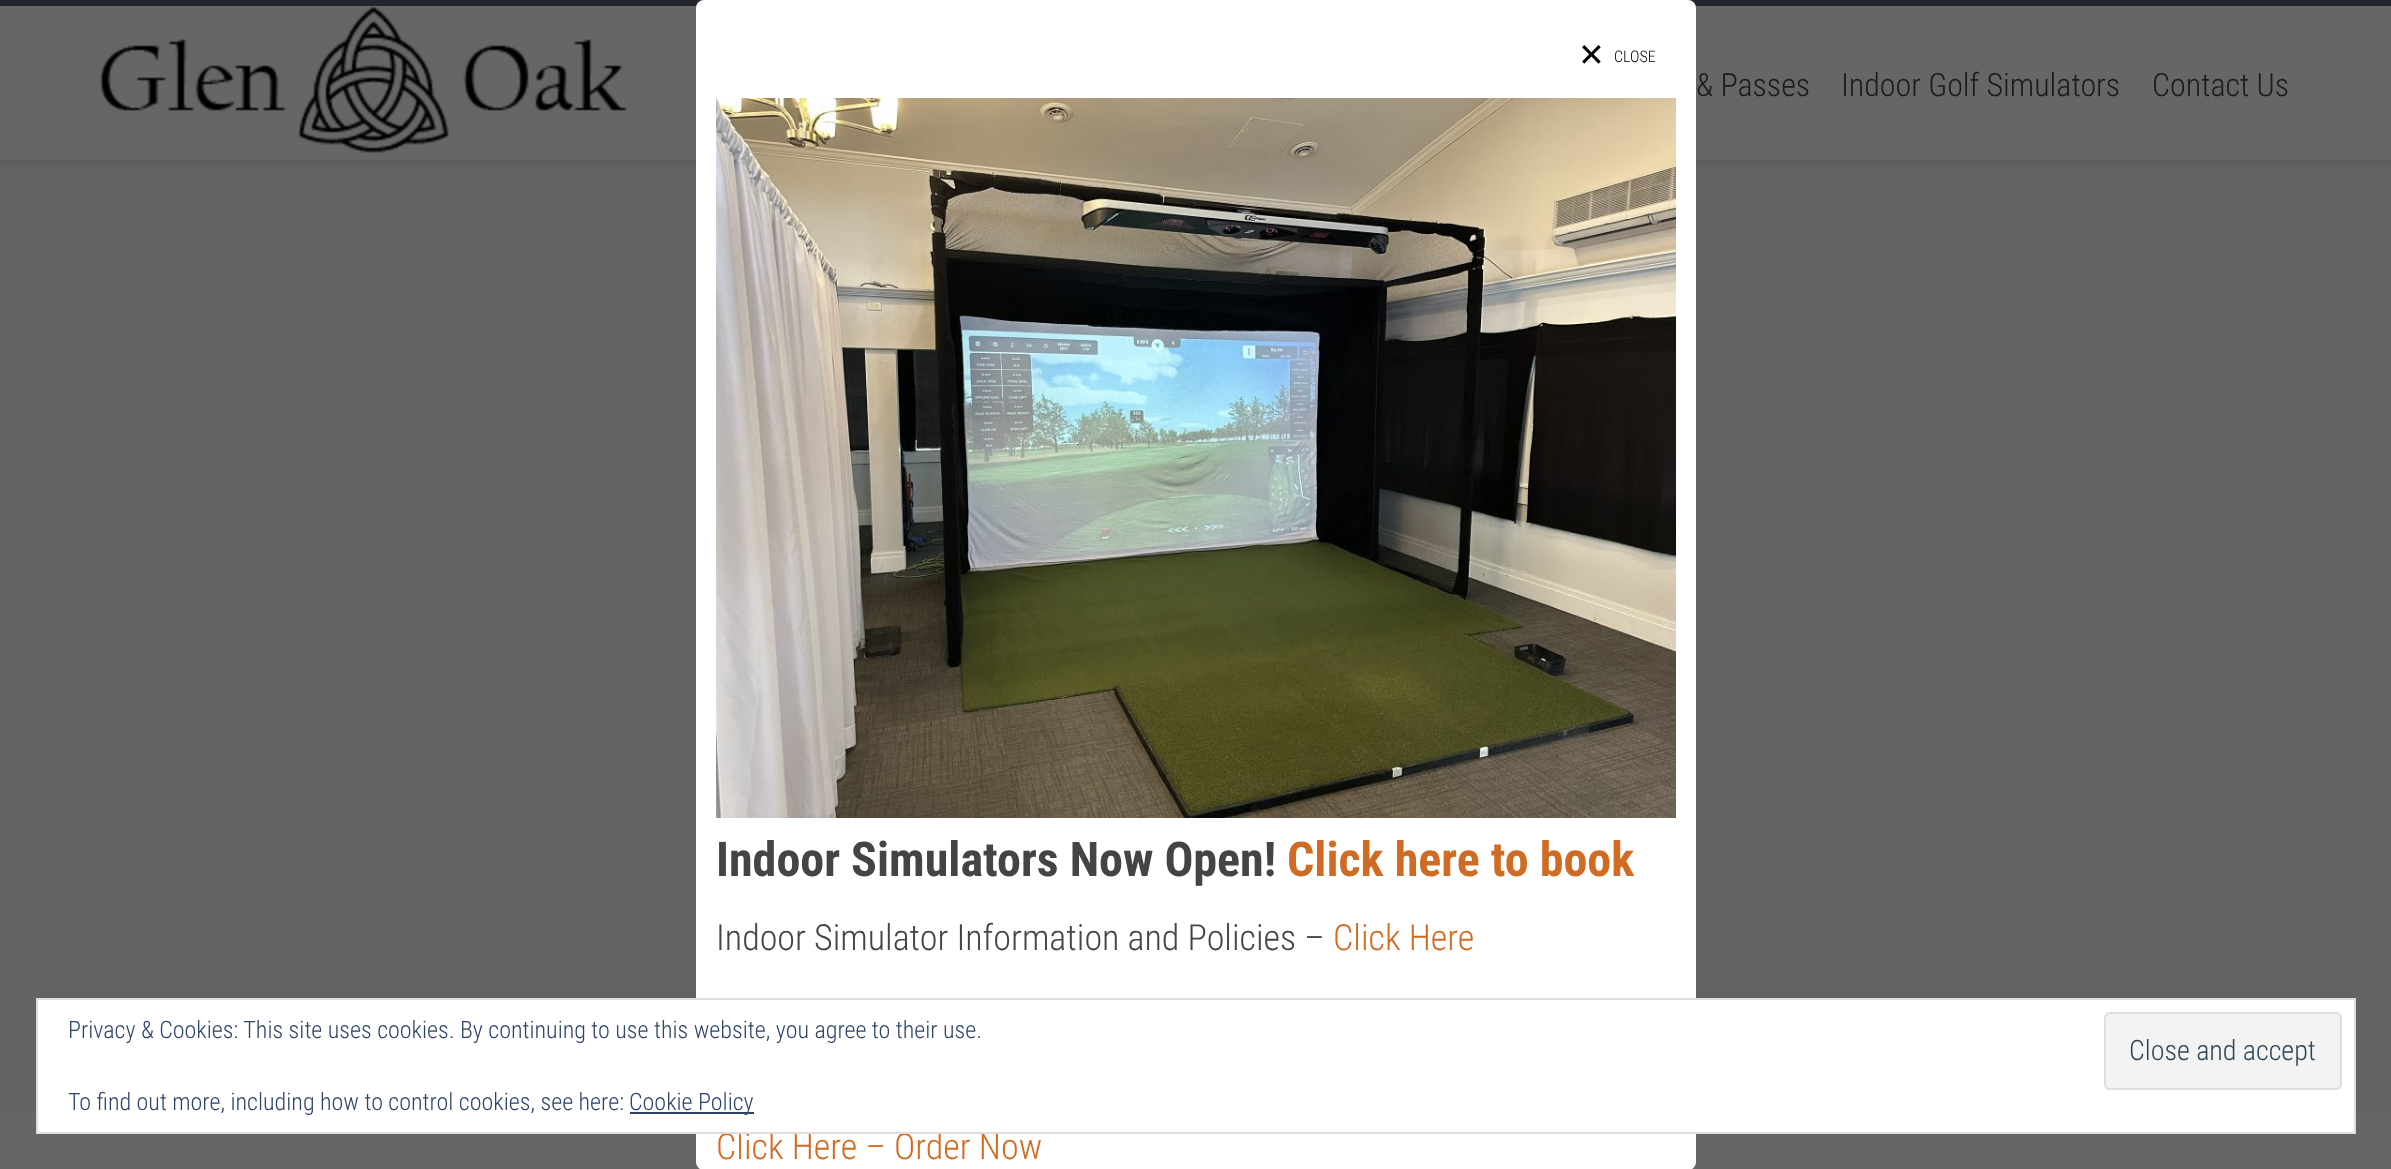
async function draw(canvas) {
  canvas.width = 2391
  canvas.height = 1169
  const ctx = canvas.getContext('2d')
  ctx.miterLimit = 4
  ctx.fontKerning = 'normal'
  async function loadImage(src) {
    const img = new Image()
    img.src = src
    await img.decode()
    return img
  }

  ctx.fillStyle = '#626262'
  ctx.fillRect(0, 0, 2391, 1169)
  ctx.fillStyle = '#5e5e5e'
  ctx.fillRect(0, 160, 2391, 6)
  ctx.fillStyle = '#666'
  ctx.fillRect(0, 6, 2391, 154)
  ctx.fillStyle = '#22262c'
  ctx.fillRect(0, 0, 2391, 6)
  ctx.fillStyle = '#666'
  ctx.fillRect(0, 1112, 2391, 57)
  ctx.fillStyle = '#fff'
  ctx.beginPath()
  ctx.roundRect(696, 0, 1000, 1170, 8)
  ctx.fill()
  ctx.font = '32px DejaVu Sans'
  ctx.fillStyle = '#000'
  ctx.fillText('✕', 1578, 66)
  ctx.font = '300 16px Roboto Condensed'
  ctx.fillText('CLOSE', 1614, 62)
  ctx.drawImage(await loadImage('image0.png'), 716, 98, 960, 720)
  ctx.font = 'bold 48px Roboto Condensed'
  ctx.fillStyle = '#444'
  ctx.fillText('Indoor Simulators Now Open!', 716, 876)
  ctx.fillStyle = '#d06b24'
  ctx.fillText('Click here to book', 1287, 876)
  ctx.font = '300 36px Roboto Condensed'
  ctx.fillStyle = '#444'
  ctx.fillText('Indoor Simulator Information and Policies –', 716, 950)
  ctx.fillStyle = '#d06b24'
  ctx.fillText('Click Here', 1333, 950)
  ctx.fillText('Click Here – Order Now', 716, 1159)
  ctx.drawImage(await loadImage('image1.png'), 99, 6, 528, 147)
  ctx.font = '300 32px Roboto Condensed'
  ctx.fillStyle = '#1b1b1b'
  ctx.fillText('& Passes', 1696, 96)
  ctx.fillText('Indoor Golf Simulators', 1841, 96)
  ctx.fillText('Contact Us', 2152, 96)
  ctx.fillStyle = '#fff'
  ctx.beginPath()
  ctx.rect(37, 999, 2318, 134)
  ctx.fill()
  ctx.strokeStyle = '#dedede'
  ctx.lineWidth = 2
  ctx.stroke()
  ctx.font = '300 24px Roboto Condensed'
  ctx.fillStyle = '#2e4467'
  ctx.fillText('Privacy & Cookies: This site uses cookies. By continuing to use this website, you agree to their use.', 68, 1038)
  ctx.fillStyle = '#f3f3f3'
  ctx.beginPath()
  ctx.roundRect(2105, 1013, 236, 76, 5)
  ctx.fill()
  ctx.stroke()
  ctx.font = '300 28px Roboto Condensed'
  ctx.fillStyle = '#2e4453'
  ctx.fillText('Close and accept', 2129, 1060)
  ctx.font = '300 24px Roboto Condensed'
  ctx.fillStyle = '#2e4467'
  ctx.fillText('To find out more, including how to control cookies, see here:', 68, 1110)
  ctx.fillRect(630, 1112, 124, 2)
  ctx.fillText('Cookie Policy', 629, 1110)
}

draw(document.querySelector('canvas'))
